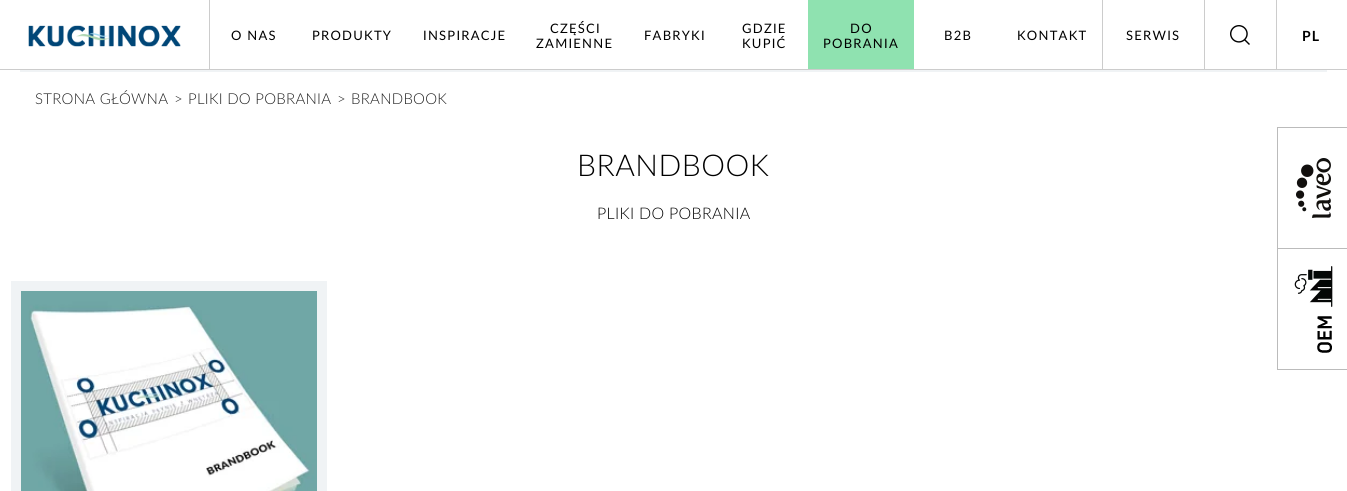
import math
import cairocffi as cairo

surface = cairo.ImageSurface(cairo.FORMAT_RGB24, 1347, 491)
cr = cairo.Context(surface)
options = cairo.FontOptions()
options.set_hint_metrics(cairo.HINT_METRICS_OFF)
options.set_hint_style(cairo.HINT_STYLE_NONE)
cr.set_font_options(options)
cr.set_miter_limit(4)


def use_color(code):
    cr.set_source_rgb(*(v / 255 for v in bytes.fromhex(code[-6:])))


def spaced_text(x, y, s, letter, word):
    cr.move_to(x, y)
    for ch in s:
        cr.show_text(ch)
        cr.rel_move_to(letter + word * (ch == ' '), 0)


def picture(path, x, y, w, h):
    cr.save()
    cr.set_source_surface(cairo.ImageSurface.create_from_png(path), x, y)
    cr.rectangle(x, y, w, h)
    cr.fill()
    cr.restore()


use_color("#ffffff")
cr.paint()
use_color("#cccccc")
cr.rectangle(0, 69, 1347, 1)
cr.fill()
cr.rectangle(209, 0, 1, 69)
cr.fill()
picture("img1.png", 28, 25, 153, 22)
cr.select_font_face("Lato")
cr.set_font_size(13)
use_color("#000000")
spaced_text(231, 40, "O NAS", 1.25, 0)
spaced_text(312, 40, "PRODUKTY", 1.25, 0)
spaced_text(423, 40, "INSPIRACJE", 1.25, 0)
spaced_text(550, 33, "CZĘŚCI", 1.25, 0)
spaced_text(536, 48, "ZAMIENNE", 1.25, 0)
spaced_text(644, 40, "FABRYKI", 1.25, 0)
spaced_text(742, 33, "GDZIE", 1.25, 0)
spaced_text(742, 48, "KUPIĆ", 1.25, 0)
use_color("#8fe2b0")
cr.rectangle(808, 0, 106, 69)
cr.fill()
use_color("#000000")
spaced_text(850, 33, "DO", 1.25, 0)
spaced_text(823, 48, "POBRANIA", 1.25, 0)
spaced_text(944, 40, "B2B", 1.25, 0)
spaced_text(1017, 40, "KONTAKT", 1.25, 0)
use_color("#cccccc")
cr.rectangle(1102, 0, 1, 69)
cr.fill()
use_color("#000000")
spaced_text(1126, 40, "SERWIS", 1.25, 0)
use_color("#cccccc")
cr.rectangle(1204, 0, 1, 69)
cr.fill()
picture("img2.png", 1230, 25, 20, 20)
cr.rectangle(1276, 0, 1, 69)
cr.fill()
cr.select_font_face("Lato", cairo.FONT_SLANT_NORMAL, cairo.FONT_WEIGHT_BOLD)
cr.set_font_size(14)
use_color("#000000")
spaced_text(1302, 41, "PL", 1, 0)
use_color("#f0f3f5")
cr.rectangle(20, 70, 1307, 2)
cr.fill()
cr.select_font_face("Lato Light")
cr.set_font_size(15)
use_color("#222222")
spaced_text(35, 104, "STRONA GŁÓWNA", 0.25, 0)
spaced_text(174, 104, ">", 0.25, 0)
spaced_text(188, 104, "PLIKI DO POBRANIA", 0.25, 0)
spaced_text(337, 104, ">", 0.25, 0)
spaced_text(351, 104, "BRANDBOOK", 0.25, 0)
cr.set_font_size(30)
use_color("#000000")
spaced_text(577, 176, "BRANDBOOK", 0.5, 0)
cr.set_font_size(16)
spaced_text(597, 219, "PLIKI DO POBRANIA", 0.3, 0)
use_color("#f0f3f5")
cr.rectangle(11, 281, 316, 210)
cr.fill()
picture("img3.png", 21, 291, 296, 200)
cr.rectangle(1277.5, 248.5, 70, 121)
use_color("#bbbbbb")
cr.set_line_width(1)
cr.stroke()
cr.rectangle(1277.5, 127.5, 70, 121)
cr.stroke()
picture("img4.png", 1296, 158, 35, 60)
picture("img5.png", 1294, 266, 39, 87)
surface.write_to_png("result.png")
